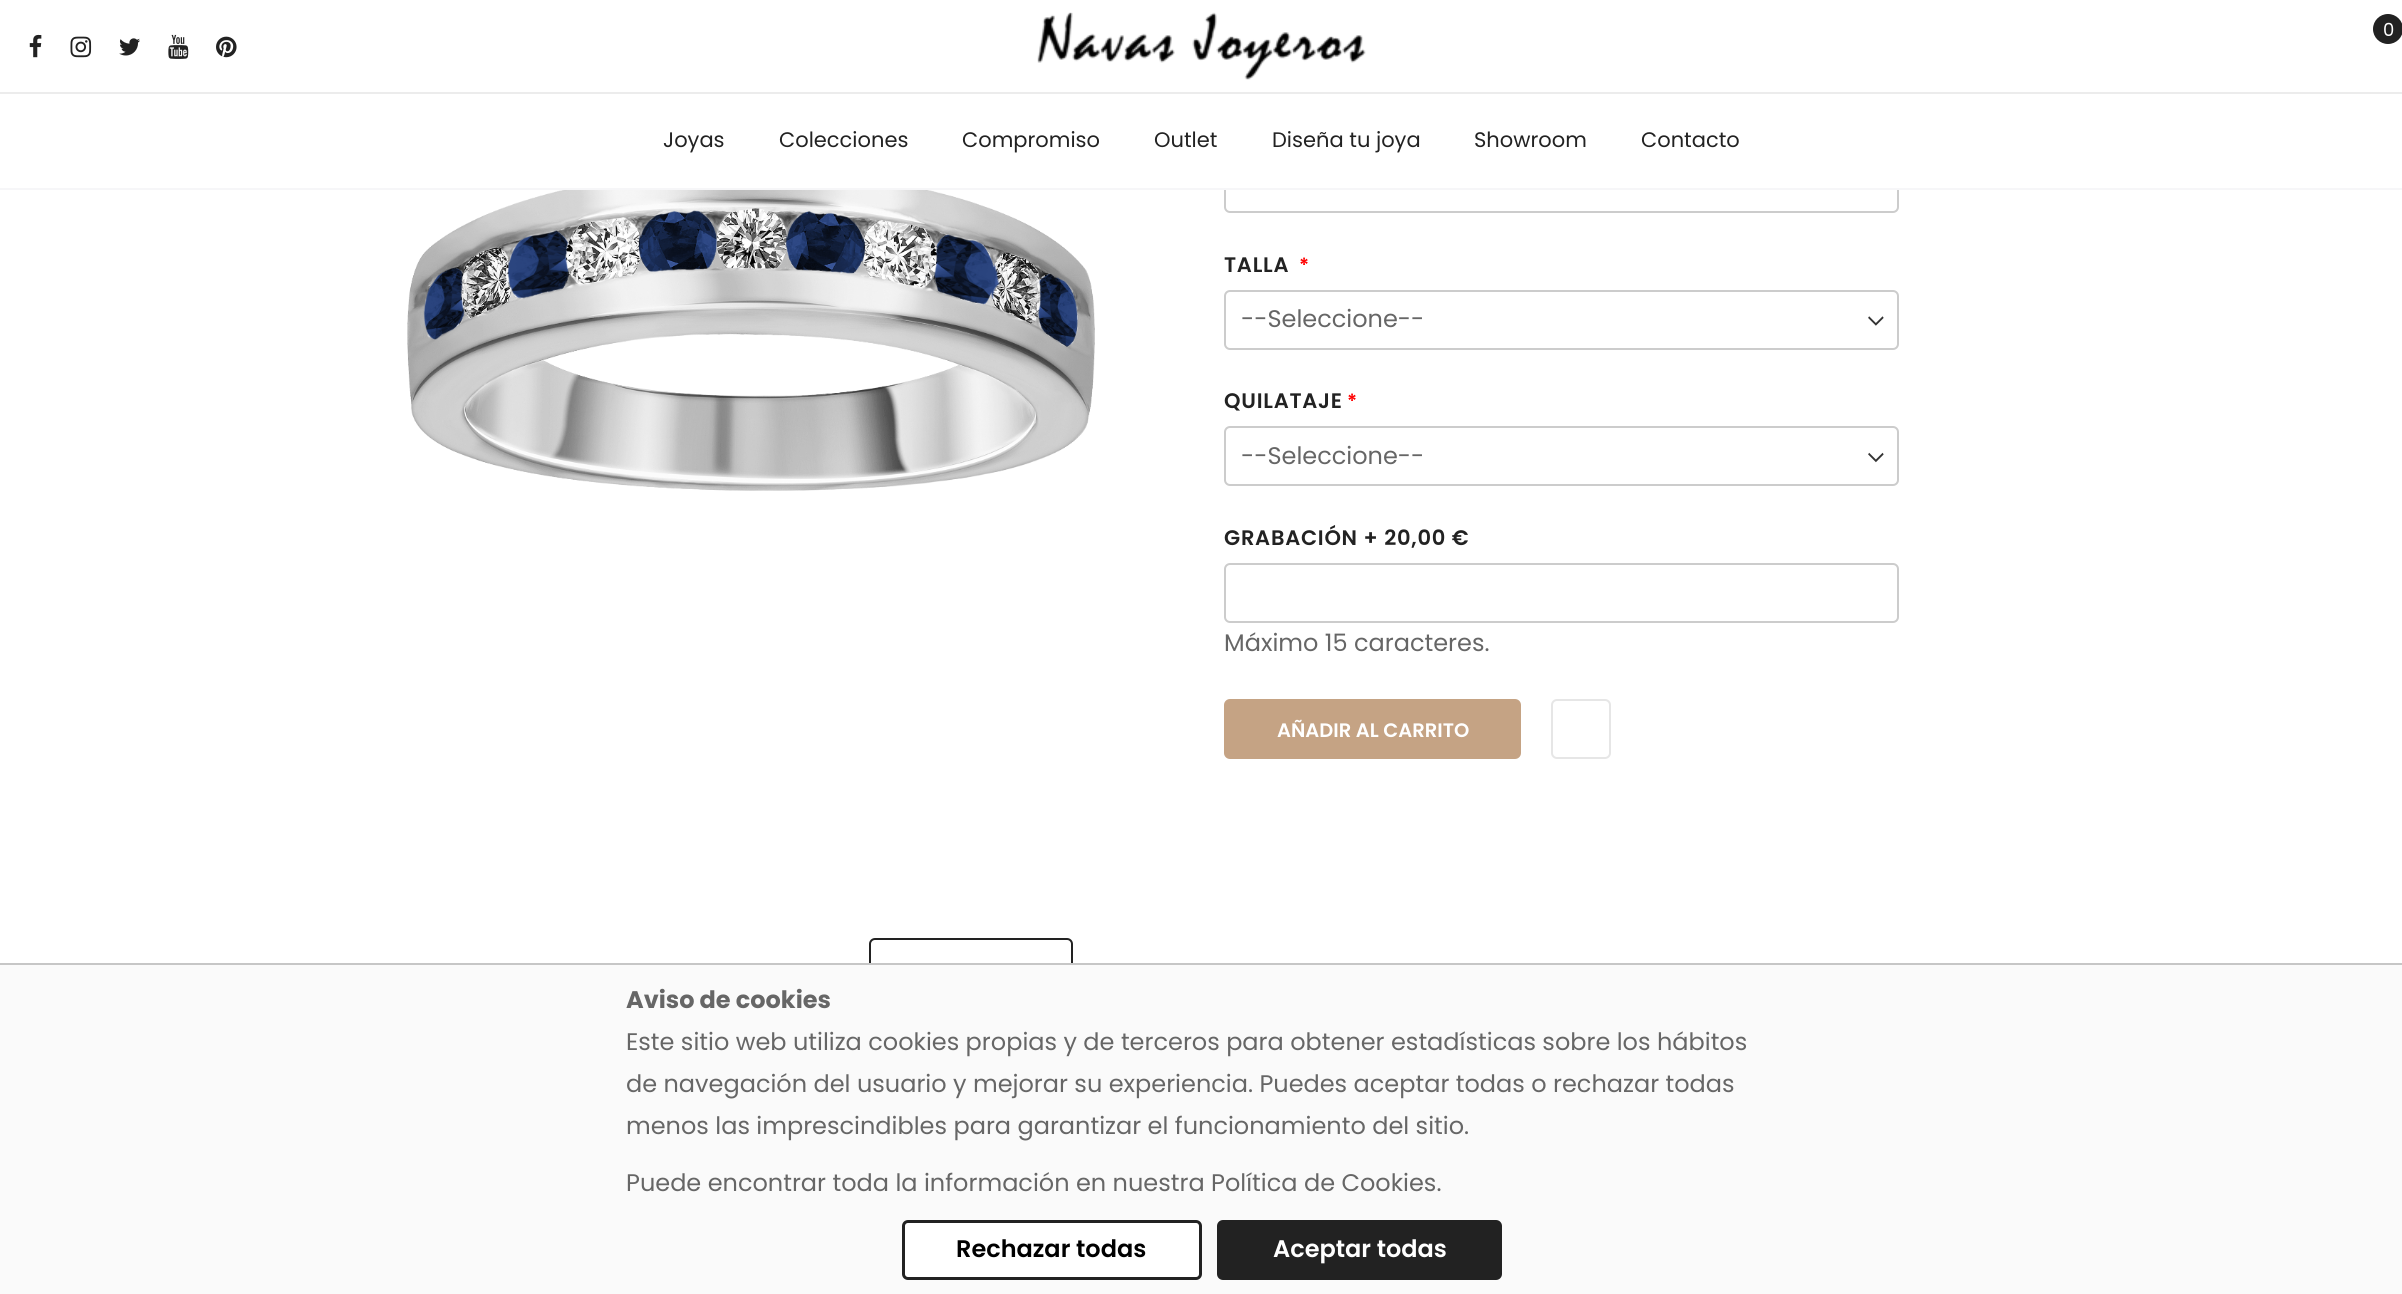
import math
import cairocffi as cairo

surface = cairo.ImageSurface(cairo.FORMAT_RGB24, 2402, 1294)
cr = cairo.Context(surface)
options = cairo.FontOptions()
options.set_hint_metrics(cairo.HINT_METRICS_OFF)
options.set_hint_style(cairo.HINT_STYLE_NONE)
cr.set_font_options(options)
cr.set_miter_limit(4)


def use_color(code):
    cr.set_source_rgb(*(v / 255 for v in bytes.fromhex(code[-6:])))


def spaced_text(x, y, s, letter, word):
    cr.move_to(x, y)
    for ch in s:
        cr.show_text(ch)
        cr.rel_move_to(letter + word * (ch == ' '), 0)


def round_rect(x, y, w, h, r):
    cr.new_sub_path()
    for i, (u, v) in enumerate([(x + w - r, y + h - r), (x + r, y + h - r), (x + r, y + r), (x + w - r, y + r)]):
        cr.arc(u, v, r, i * math.pi / 2, (i + 1) * math.pi / 2)
    cr.close_path()


def picture(path, x, y, w, h):
    cr.save()
    cr.set_source_surface(cairo.ImageSurface.create_from_png(path), x, y)
    cr.rectangle(x, y, w, h)
    cr.fill()
    cr.restore()


use_color("#ffffff")
cr.paint()
round_rect(1225, 154, 673, 58, 5)
use_color("#cccccc")
cr.stroke()
use_color("#ffffff")
cr.rectangle(1224, 153, 675, 35)
cr.fill()
use_color("#f6f6f8")
cr.rectangle(0, 188, 2402, 2)
cr.fill()
picture("img1.png", 1037, 12, 329, 68)
use_color("#222222")
cr.arc(2388, 29, 15, 0, 2 * math.pi)
cr.fill()
cr.select_font_face("Poppins")
cr.set_font_size(18)
use_color("#ffffff")
cr.move_to(2383, 36)
cr.show_text("0")
picture("img2.png", 29, 34, 13, 24)
picture("img3.png", 70, 36, 22, 22)
picture("img4.png", 119, 38, 21, 18)
picture("img5.png", 168, 34, 21, 25)
picture("img6.png", 216, 36, 21, 22)
use_color("#ececec")
cr.rectangle(0, 92, 2402, 2)
cr.fill()
cr.set_font_size(21)
use_color("#222222")
cr.move_to(663, 147)
cr.show_text("Joyas")
cr.move_to(779, 147)
cr.show_text("Colecciones")
cr.move_to(962, 147)
cr.show_text("Compromiso")
cr.move_to(1154, 147)
cr.show_text("Outlet")
cr.move_to(1272, 147)
cr.show_text("Diseña tu joya")
cr.move_to(1474, 147)
cr.show_text("Showroom")
cr.move_to(1641, 147)
cr.show_text("Contacto")
picture("img7.png", 407, 190, 688, 301)
cr.select_font_face("Poppins SemiBold")
spaced_text(1224, 272, "TALLA", 0.75, 0)
cr.set_font_size(19.5)
use_color("#ff0000")
spaced_text(1299, 272, "*", 0.75, 0)
picture("img8.png", 1868, 316, 16, 10)
round_rect(1225, 291, 673, 58, 5)
use_color("#cccccc")
cr.stroke()
cr.select_font_face("Poppins")
cr.set_font_size(24)
use_color("#666666")
cr.move_to(1241, 327)
cr.show_text("--Seleccione--")
cr.select_font_face("Poppins SemiBold")
cr.set_font_size(21)
use_color("#222222")
spaced_text(1224, 408, "QUILATAJE", 0.75, 0)
cr.set_font_size(19.5)
use_color("#ff0000")
spaced_text(1347, 408, "*", 0.75, 0)
picture("img9.png", 1868, 452, 16, 11)
round_rect(1225, 427, 673, 58, 5)
use_color("#cccccc")
cr.stroke()
cr.select_font_face("Poppins")
cr.set_font_size(24)
use_color("#666666")
cr.move_to(1241, 464)
cr.show_text("--Seleccione--")
cr.select_font_face("Poppins SemiBold")
cr.set_font_size(21)
use_color("#222222")
spaced_text(1224, 545, "GRABACIÓN + 20,00 €", 0.75, 0)
round_rect(1225, 564, 673, 58, 5)
use_color("#cccccc")
cr.stroke()
cr.select_font_face("Poppins")
cr.set_font_size(24)
use_color("#666666")
cr.move_to(1224, 651)
cr.show_text("Máximo 15 caracteres.")
use_color("#c5a384")
round_rect(1225, 700, 295, 58, 5)
cr.fill_preserve()
cr.stroke()
cr.select_font_face("Poppins SemiBold")
cr.set_font_size(19.5)
use_color("#ffffff")
cr.move_to(1277, 737)
cr.show_text("AÑADIR AL CARRITO")
round_rect(1552, 700, 58, 58, 5)
use_color("#e6e6e6")
cr.stroke()
round_rect(870, 939, 202, 58, 5)
use_color("#222222")
cr.stroke()
use_color("#fafafa")
cr.rectangle(0, 965, 2402, 329)
cr.fill()
use_color("#c6c6c6")
cr.rectangle(0, 963, 2402, 2)
cr.fill()
cr.select_font_face("Poppins", cairo.FONT_SLANT_NORMAL, cairo.FONT_WEIGHT_BOLD)
cr.set_font_size(24)
use_color("#666666")
cr.move_to(626, 1008)
cr.show_text("Aviso de cookies")
cr.select_font_face("Poppins")
cr.move_to(626, 1050)
cr.show_text("Este sitio web utiliza cookies propias y de terceros para obtener estadísticas sobre los hábitos")
cr.move_to(626, 1092)
cr.show_text("de navegación del usuario y mejorar su experiencia. Puedes aceptar todas o rechazar todas")
cr.move_to(626, 1134)
cr.show_text("menos las imprescindibles para garantizar el funcionamiento del sitio.")
cr.move_to(626, 1191)
cr.show_text("Puede encontrar toda la información en nuestra Política de Cookies.")
use_color("#ffffff")
round_rect(903.5, 1221.5, 297, 57, 4.5)
cr.fill_preserve()
use_color("#222222")
cr.set_line_width(3)
cr.stroke()
cr.select_font_face("Poppins SemiBold")
use_color("#000000")
cr.move_to(956, 1257)
cr.show_text("Rechazar todas")
use_color("#222222")
round_rect(1218.5, 1221.5, 282, 57, 4.5)
cr.fill_preserve()
cr.stroke()
use_color("#ffffff")
cr.move_to(1273, 1257)
cr.show_text("Aceptar todas")
surface.write_to_png("result.png")
